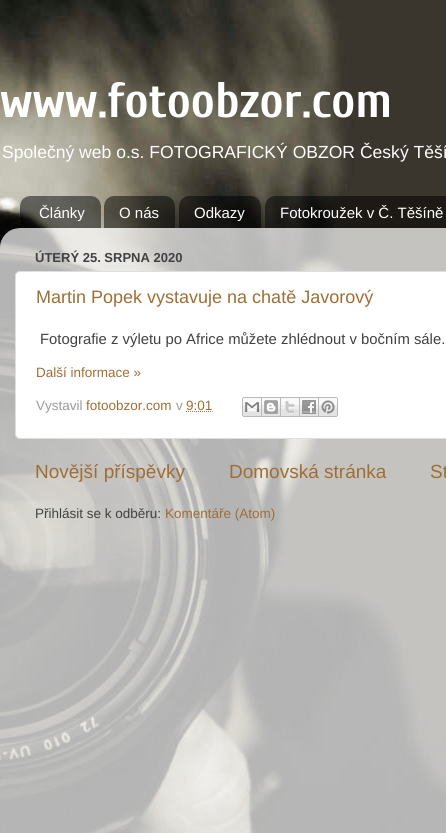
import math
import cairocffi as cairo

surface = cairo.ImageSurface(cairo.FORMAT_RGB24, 446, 833)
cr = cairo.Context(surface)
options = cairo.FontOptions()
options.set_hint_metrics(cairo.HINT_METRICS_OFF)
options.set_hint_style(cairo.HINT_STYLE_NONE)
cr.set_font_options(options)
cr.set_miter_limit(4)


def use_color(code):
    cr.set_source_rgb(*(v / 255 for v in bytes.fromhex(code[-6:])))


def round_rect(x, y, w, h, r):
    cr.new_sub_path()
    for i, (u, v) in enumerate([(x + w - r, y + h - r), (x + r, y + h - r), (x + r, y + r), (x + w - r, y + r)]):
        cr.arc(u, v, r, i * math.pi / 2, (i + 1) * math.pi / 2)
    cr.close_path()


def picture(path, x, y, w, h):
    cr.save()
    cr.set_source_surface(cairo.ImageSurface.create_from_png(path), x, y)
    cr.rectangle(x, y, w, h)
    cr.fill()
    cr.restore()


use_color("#ffffff")
cr.paint()
picture("img1.png", 0, 0, 446, 833)
cr.select_font_face("Cuprum", cairo.FONT_SLANT_NORMAL, cairo.FONT_WEIGHT_BOLD)
cr.set_font_size(50)
use_color("#ffffff")
cr.move_to(0, 117)
cr.show_text("www.fotoobzor.com")
cr.select_font_face("Liberation Sans")
cr.set_font_size(17.55)
cr.move_to(2, 158)
cr.show_text("Společný web o.s. FOTOGRAFICKÝ OBZOR Český Těší")
picture("img2.png", 20, 196, 81, 32)
cr.set_font_size(15)
cr.move_to(39, 218)
cr.show_text("Články")
picture("img3.png", 104, 196, 71, 32)
cr.move_to(119, 218)
cr.show_text("O nás")
picture("img4.png", 179, 196, 82, 32)
cr.move_to(194, 218)
cr.show_text("Odkazy")
picture("img5.png", 265, 196, 181, 32)
cr.move_to(280, 218)
cr.show_text("Fotokroužek v Č. Těšíně")
picture("img6.png", 0, 228, 446, 605)
cr.select_font_face("Liberation Sans", cairo.FONT_SLANT_NORMAL, cairo.FONT_WEIGHT_BOLD)
cr.set_font_size(13)
use_color("#414141")
cr.move_to(35, 262)
cr.show_text("ÚTERÝ 25. SRPNA 2020")
use_color("#ffffff")
round_rect(15.5, 271.5, 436, 167, 4.5)
cr.fill_preserve()
use_color("#dedede")
cr.set_line_width(1)
cr.stroke()
cr.select_font_face("Liberation Sans")
cr.set_font_size(18)
use_color("#9f6e35")
cr.move_to(36, 303)
cr.show_text("Martin Popek vystavuje na chatě Javorový")
cr.set_font_size(14.85)
use_color("#414141")
cr.move_to(40, 344)
cr.show_text("Fotografie z výletu po Africe můžete zhlédnout v bočním sále.")
cr.set_font_size(13.5)
use_color("#9f6e35")
cr.move_to(36, 377)
cr.show_text("Další informace »")
use_color("#9b9b9b")
cr.move_to(36, 410)
cr.show_text("Vystavil")
use_color("#9f6e35")
cr.move_to(86, 410)
cr.show_text("fotoobzor.com")
use_color("#9b9b9b")
cr.move_to(176, 410)
cr.show_text("v")
use_color("#9f6e35")
cr.move_to(186, 410)
cr.show_text("9:01")
cr.new_path()
cr.move_to(186, 411.5)
cr.line_to(212.5, 411.5)
cr.set_dash([1, 1])
cr.stroke()
picture("img7.png", 242, 397, 20, 20)
picture("img8.png", 262, 397, 19, 20)
picture("img9.png", 281, 397, 19, 20)
picture("img10.png", 300, 397, 19, 20)
picture("img11.png", 319, 397, 19, 20)
cr.set_font_size(19)
cr.move_to(35, 478)
cr.show_text("Novější příspěvky")
cr.move_to(229, 478)
cr.show_text("Domovská stránka")
cr.move_to(430, 478)
cr.show_text("St")
cr.set_font_size(13.5)
use_color("#414141")
cr.move_to(35, 518)
cr.show_text("Přihlásit se k odběru:")
use_color("#9f6e35")
cr.move_to(165, 518)
cr.show_text("Komentáře (Atom)")
surface.write_to_png("result.png")
